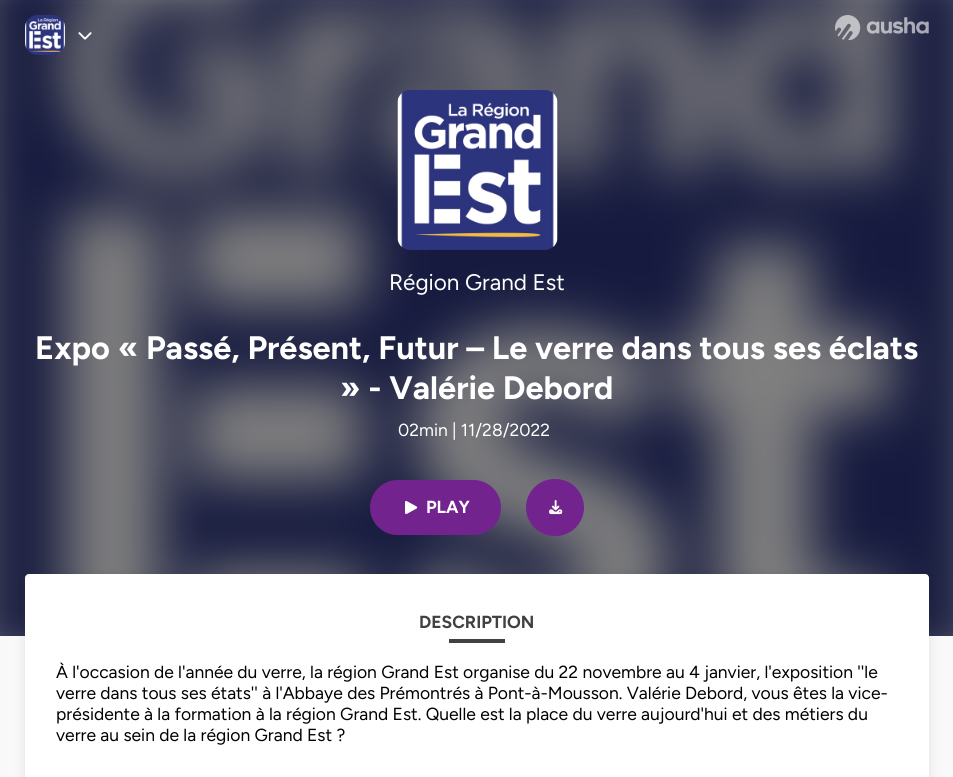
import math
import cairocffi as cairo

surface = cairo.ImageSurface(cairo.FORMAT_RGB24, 953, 777)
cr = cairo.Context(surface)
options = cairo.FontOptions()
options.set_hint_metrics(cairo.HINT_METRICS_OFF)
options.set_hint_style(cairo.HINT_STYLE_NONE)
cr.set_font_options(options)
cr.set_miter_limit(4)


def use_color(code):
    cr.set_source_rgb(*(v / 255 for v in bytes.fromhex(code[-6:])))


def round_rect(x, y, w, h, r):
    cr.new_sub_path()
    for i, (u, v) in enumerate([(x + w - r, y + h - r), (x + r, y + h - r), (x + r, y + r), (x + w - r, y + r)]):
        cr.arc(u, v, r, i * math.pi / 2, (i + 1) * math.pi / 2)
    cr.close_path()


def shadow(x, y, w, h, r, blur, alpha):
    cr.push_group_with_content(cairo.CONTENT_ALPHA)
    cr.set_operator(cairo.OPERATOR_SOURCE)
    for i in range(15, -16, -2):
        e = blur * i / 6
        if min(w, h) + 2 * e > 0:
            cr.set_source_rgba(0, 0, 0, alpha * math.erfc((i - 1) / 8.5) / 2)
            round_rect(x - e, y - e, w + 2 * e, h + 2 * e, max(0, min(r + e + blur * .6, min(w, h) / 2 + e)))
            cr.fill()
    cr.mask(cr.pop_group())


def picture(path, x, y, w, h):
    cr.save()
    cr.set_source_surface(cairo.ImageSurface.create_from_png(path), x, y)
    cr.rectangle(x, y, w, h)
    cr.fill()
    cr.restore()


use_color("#ffffff")
cr.paint()
picture("img1.png", 0, 0, 953, 636)
use_color("#000000")
shadow(-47, -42, 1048, 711, 0, 25, 0.5)
picture("img2.png", 25, 15, 40, 40)
picture("img3.png", 78, 32, 14, 8)
picture("img4.png", 835, 15, 94, 25)
picture("img5.png", 397, 90, 161, 160)
cr.select_font_face("Figtree")
cr.set_font_size(22.5)
use_color("#ffffff")
cr.move_to(389, 290)
cr.show_text("Région Grand Est")
cr.select_font_face("Figtree", cairo.FONT_SLANT_NORMAL, cairo.FONT_WEIGHT_BOLD)
cr.set_font_size(32.5)
cr.move_to(35, 359)
cr.show_text("Expo « Passé, Présent, Futur – Le verre dans tous ses éclats")
cr.move_to(340, 399)
cr.show_text("» - Valérie Debord")
cr.select_font_face("Figtree")
cr.set_font_size(17.5)
cr.move_to(398, 436)
cr.show_text("02min | 11/28/2022")
use_color("#72238e")
round_rect(370, 480, 131, 55, 27.5)
cr.fill()
picture("img6.png", 405, 501, 13, 13)
cr.select_font_face("Figtree", cairo.FONT_SLANT_NORMAL, cairo.FONT_WEIGHT_BOLD)
use_color("#ffffff")
cr.move_to(426, 513)
cr.show_text("PLAY")
use_color("#72238e")
round_rect(526, 479, 58, 57, 28.5)
cr.fill()
picture("img7.png", 549, 500, 14, 15)
use_color("#f9f9f9")
cr.rectangle(0, 636, 953, 141)
cr.fill()
use_color("#000000")
shadow(25, 576, 904, 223, 4, 6, 0.1)
use_color("#ffffff")
round_rect(25, 574, 904, 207, 4)
cr.fill()
use_color("#414141")
cr.move_to(419, 628)
cr.show_text("DESCRIPTION")
cr.rectangle(449, 639, 56, 4)
cr.fill()
cr.select_font_face("Figtree")
use_color("#000000")
cr.move_to(56, 678)
cr.show_text("À l'occasion de l'année du verre, la région Grand Est organise du 22 novembre au 4 janvier, l'exposition ''le")
cr.move_to(56, 699)
cr.show_text("verre dans tous ses états'' à l'Abbaye des Prémontrés à Pont-à-Mousson. Valérie Debord, vous êtes la vice-")
cr.move_to(56, 720)
cr.show_text("présidente à la formation à la région Grand Est. Quelle est la place du verre aujourd'hui et des métiers du")
cr.move_to(56, 741)
cr.show_text("verre au sein de la région Grand Est ?")
surface.write_to_png("result.png")
